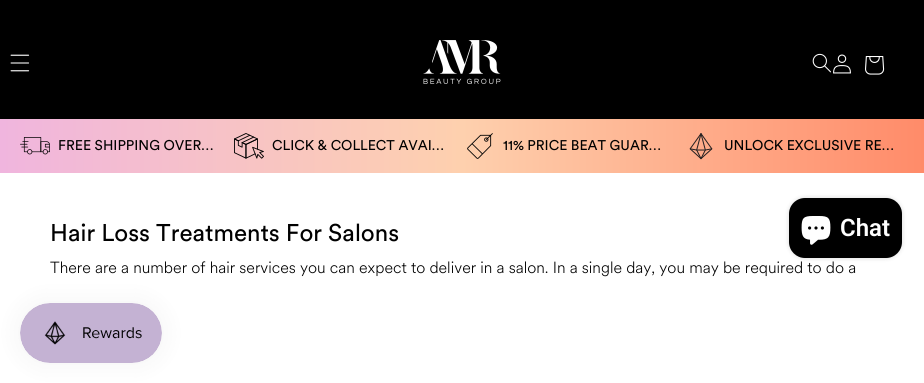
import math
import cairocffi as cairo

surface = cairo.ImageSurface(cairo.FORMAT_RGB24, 924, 383)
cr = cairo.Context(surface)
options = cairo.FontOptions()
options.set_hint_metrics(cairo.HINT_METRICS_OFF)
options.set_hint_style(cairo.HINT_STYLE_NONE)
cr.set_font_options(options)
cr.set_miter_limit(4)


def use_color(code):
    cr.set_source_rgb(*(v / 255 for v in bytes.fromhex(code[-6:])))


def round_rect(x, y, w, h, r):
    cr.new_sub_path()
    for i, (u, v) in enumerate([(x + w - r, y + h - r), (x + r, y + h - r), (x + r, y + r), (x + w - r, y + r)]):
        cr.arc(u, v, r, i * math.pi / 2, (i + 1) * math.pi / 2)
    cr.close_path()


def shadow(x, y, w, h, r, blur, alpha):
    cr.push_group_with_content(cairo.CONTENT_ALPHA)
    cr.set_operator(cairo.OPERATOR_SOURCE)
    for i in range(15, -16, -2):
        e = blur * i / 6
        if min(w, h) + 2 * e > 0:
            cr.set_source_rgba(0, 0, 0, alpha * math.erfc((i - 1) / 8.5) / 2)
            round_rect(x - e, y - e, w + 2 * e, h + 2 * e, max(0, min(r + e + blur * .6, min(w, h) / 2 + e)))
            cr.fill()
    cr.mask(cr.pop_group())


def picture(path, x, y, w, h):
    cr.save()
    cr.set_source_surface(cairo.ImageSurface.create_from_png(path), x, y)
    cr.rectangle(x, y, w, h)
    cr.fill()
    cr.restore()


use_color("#ffffff")
cr.paint()
use_color("#000000")
cr.rectangle(0, 0, 924, 119)
cr.fill()
picture("img1.png", 10, 54, 20, 18)
picture("img2.png", 423, 40, 78, 44)
picture("img3.png", 812, 53, 19, 20)
picture("img4.png", 833, 54, 18, 20)
picture("img5.png", 865, 56, 20, 19)
gradient = cairo.LinearGradient(0, 146, 924, 146)
gradient.add_color_stop_rgba(0, 0.941, 0.71, 0.871, 1)
gradient.add_color_stop_rgba(0.5, 0.996, 0.816, 0.682, 1)
gradient.add_color_stop_rgba(1, 1, 0.545, 0.412, 1)
cr.set_source(gradient)
cr.rectangle(0, 119, 924, 54)
cr.fill()
picture("img6.png", 20, 137, 30, 18)
cr.select_font_face("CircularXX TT")
cr.set_font_size(14)
use_color("#000000")
cr.move_to(58, 150)
cr.show_text("FREE SHIPPING OVER…")
picture("img7.png", 234, 133, 30, 26)
cr.move_to(272, 150)
cr.show_text("CLICK & COLLECT AVAI…")
picture("img8.png", 467, 133, 26, 26)
cr.move_to(503, 150)
cr.show_text("11% PRICE BEAT GUAR…")
picture("img9.png", 689, 133, 24, 27)
cr.move_to(724, 150)
cr.show_text("UNLOCK EXCLUSIVE RE…")
cr.set_font_size(24)
cr.move_to(50, 241)
cr.show_text("Hair Loss Treatments For Salons")
cr.select_font_face("CircularXX TT Light")
cr.set_font_size(16)
cr.move_to(50, 273)
cr.show_text("There are a number of hair services you can expect to deliver in a salon. In a single day, you may be required to do a")
use_color("#000000")
shadow(789, 198, 113, 60, 16, 2.5, 0.15)
use_color("#000000")
round_rect(789, 198, 113, 60, 16)
cr.fill()
picture("img10.png", 801, 216, 30, 29)
cr.select_font_face("Roboto SemiBold")
cr.set_font_size(24)
use_color("#ffffff")
cr.move_to(840, 236)
cr.show_text("Chat")
use_color("#000000")
shadow(20, 303, 142, 60, 30, 12.5, 0.05)
picture("img11.png", 20, 303, 142, 60)
surface.write_to_png("result.png")
